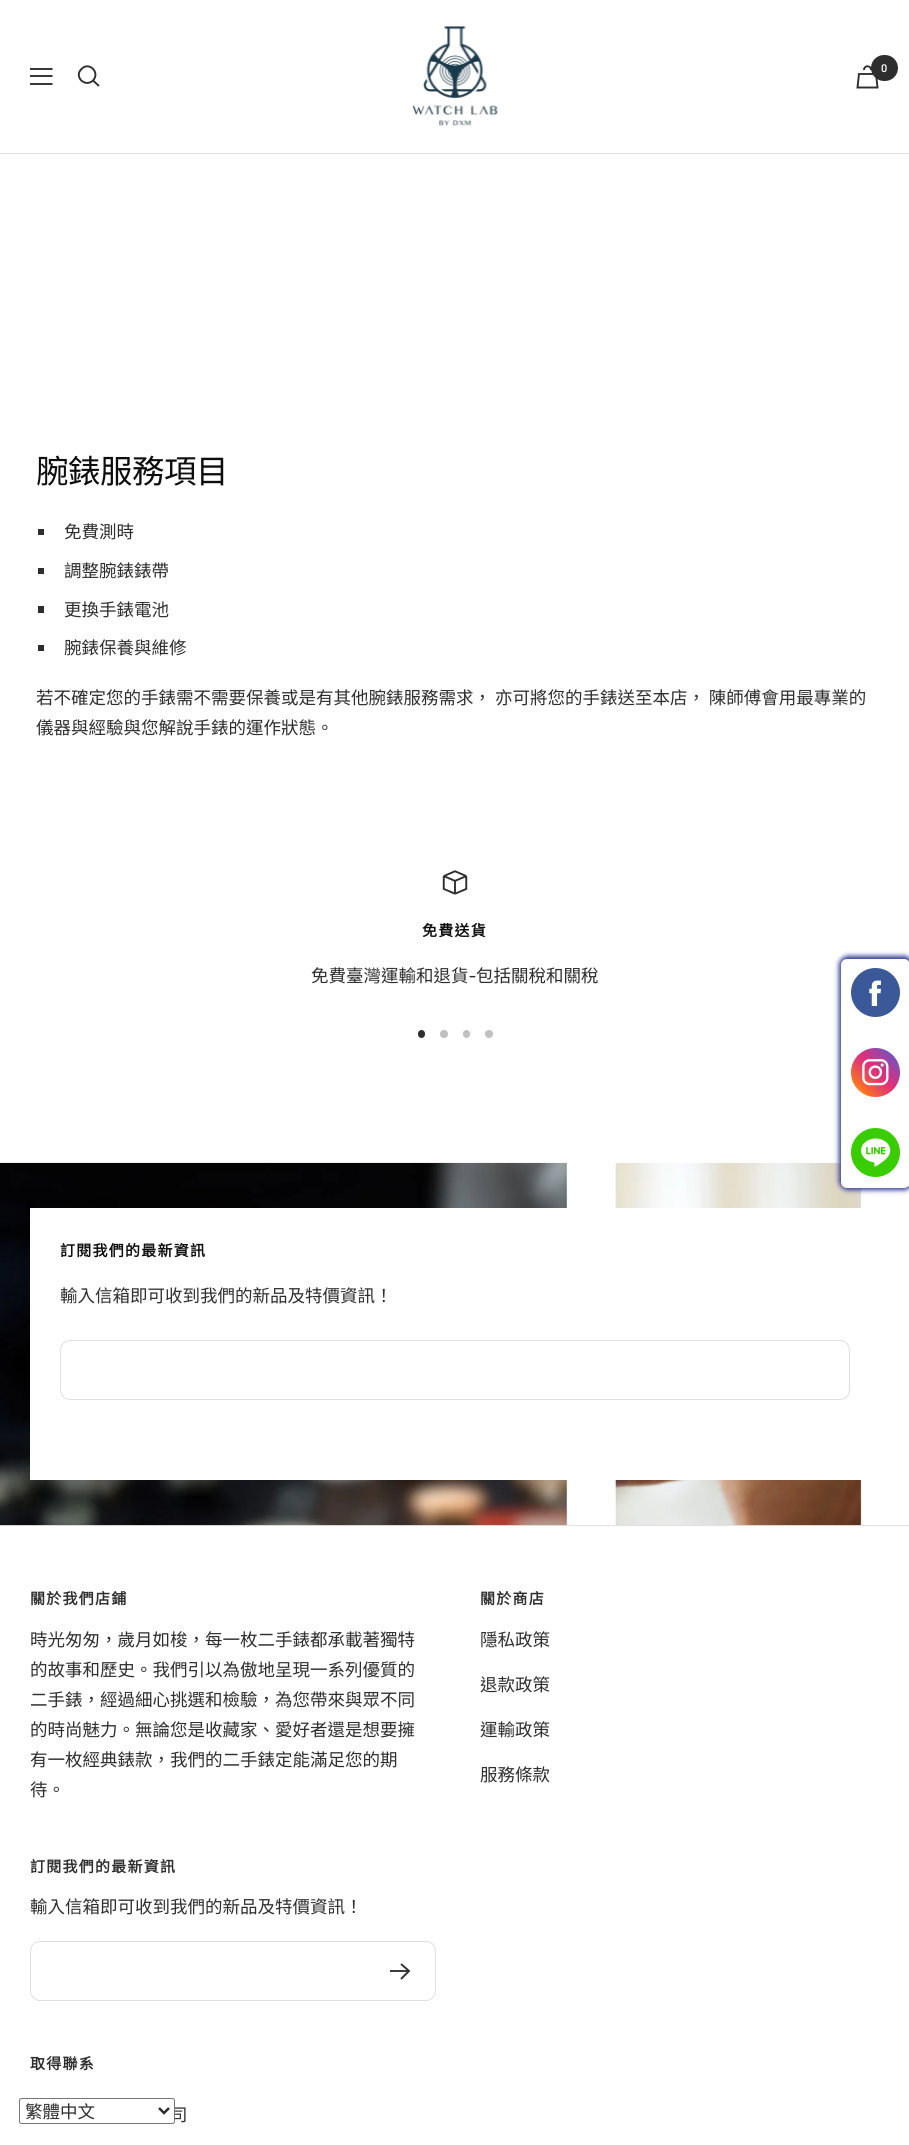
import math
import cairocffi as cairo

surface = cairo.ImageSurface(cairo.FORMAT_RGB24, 909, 2145)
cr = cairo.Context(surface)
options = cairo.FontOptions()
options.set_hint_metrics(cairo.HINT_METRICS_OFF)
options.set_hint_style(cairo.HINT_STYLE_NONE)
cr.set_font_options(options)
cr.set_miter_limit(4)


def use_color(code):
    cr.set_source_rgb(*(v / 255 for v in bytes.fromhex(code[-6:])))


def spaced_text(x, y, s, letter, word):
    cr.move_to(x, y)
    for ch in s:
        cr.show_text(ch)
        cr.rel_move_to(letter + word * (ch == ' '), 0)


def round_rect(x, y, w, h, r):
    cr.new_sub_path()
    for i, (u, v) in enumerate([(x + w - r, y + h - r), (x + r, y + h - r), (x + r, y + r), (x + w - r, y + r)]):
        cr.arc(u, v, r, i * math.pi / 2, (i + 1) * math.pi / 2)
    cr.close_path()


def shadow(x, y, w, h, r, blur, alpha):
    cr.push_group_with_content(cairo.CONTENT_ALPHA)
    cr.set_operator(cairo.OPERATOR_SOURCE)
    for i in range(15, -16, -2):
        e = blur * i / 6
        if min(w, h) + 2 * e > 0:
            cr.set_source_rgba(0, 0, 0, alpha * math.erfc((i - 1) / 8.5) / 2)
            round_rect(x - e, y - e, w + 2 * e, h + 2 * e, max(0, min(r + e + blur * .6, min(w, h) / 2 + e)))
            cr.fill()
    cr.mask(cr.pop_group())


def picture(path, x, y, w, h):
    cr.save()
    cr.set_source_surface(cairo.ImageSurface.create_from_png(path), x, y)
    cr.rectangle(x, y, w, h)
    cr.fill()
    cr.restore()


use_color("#ffffff")
cr.paint()
use_color("#e0e0e0")
cr.rectangle(0, 153, 909, 1)
cr.fill()
cr.new_path()
cr.move_to(30, 69)
cr.line_to(52.5, 69)
cr.move_to(30, 84)
cr.line_to(52.5, 84)
cr.close_path()
cr.move_to(30, 76)
cr.line_to(52.5, 76)
cr.close_path()
use_color("#2e2e2e")
cr.set_line_width(1.9)
cr.stroke()
cr.new_path()
cr.move_to(93, 80.5)
cr.curve_to(100.5, 72.5, 89, 61, 81.5, 69)
cr.curve_to(73.5, 76.5, 85, 88, 93, 80.5)
cr.close_path()
cr.move_to(93, 80.5)
cr.line_to(99, 86)
cr.stroke()
picture("img1.png", 412, 26, 87, 100)
cr.new_path()
cr.move_to(859, 74)
cr.line_to(876, 74)
cr.line_to(877.5, 87.5)
cr.line_to(857.5, 87.5)
cr.close_path()
cr.move_to(871, 70)
cr.curve_to(871, 65, 864, 65, 864, 70)
cr.stroke()
round_rect(871, 55, 27, 26, 13)
cr.fill()
cr.select_font_face("Barlow SemiBold")
cr.set_font_size(11)
use_color("#ffffff")
cr.move_to(881, 72)
cr.show_text("0")
cr.select_font_face("Noto Sans CJK TC")
cr.set_font_size(32.5)
use_color("#0d0d0d")
spaced_text(36, 483, "腕錶服務項目", -0.5, 0)
use_color("#2e2e2e")
cr.rectangle(38, 529, 6, 6)
cr.fill()
cr.set_font_size(17.5)
cr.move_to(64, 538)
cr.show_text("免費測時")
cr.rectangle(38, 568, 6, 6)
cr.fill()
cr.move_to(64, 577)
cr.show_text("調整腕錶錶帶")
cr.rectangle(38, 606, 6, 7)
cr.fill()
cr.move_to(64, 616)
cr.show_text("更換手錶電池")
cr.rectangle(38, 645, 6, 6)
cr.fill()
cr.move_to(64, 654)
cr.show_text("腕錶保養與維修")
cr.move_to(36, 704)
cr.show_text("若不確定您的手錶需不需要保養或是有其他腕錶服務需求， 亦可將您的手錶送至本店， 陳師傅會用最專業的")
cr.move_to(36, 734)
cr.show_text("儀器與經驗與您解說手錶的運作狀態。")
picture("img2.png", 442, 870, 26, 25)
cr.select_font_face("Noto Sans CJK TC", cairo.FONT_SLANT_NORMAL, cairo.FONT_WEIGHT_BOLD)
cr.set_font_size(15)
use_color("#0d0d0d")
spaced_text(422, 936, "免費送貨", 1.25, 0)
cr.select_font_face("Noto Sans CJK TC")
cr.set_font_size(17.5)
use_color("#2e2e2e")
cr.move_to(311, 982)
cr.show_text("免費臺灣運輸和退貨")
cr.select_font_face("Barlow Medium")
cr.move_to(469, 982)
cr.show_text("-")
cr.select_font_face("Noto Sans CJK TC")
cr.move_to(476, 982)
cr.show_text("包括關稅和關稅")
round_rect(418, 1030, 7, 8, 3.5)
cr.fill()
use_color("#c0c0c0")
cr.arc(444, 1034, 4, 0, 2 * math.pi)
cr.fill()
round_rect(463, 1030, 7, 8, 3.5)
cr.fill()
cr.arc(489, 1034, 4, 0, 2 * math.pi)
cr.fill()
use_color("#e0e0e0")
cr.rectangle(0, 1525, 909, 1)
cr.fill()
picture("img6.png", 0, 1162, 909, 364)
use_color("#283593")
shadow(839, 956, 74, 234, 9, 2.5, 1)
use_color("#ffffff")
round_rect(841, 959, 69, 229, 6)
cr.fill()
picture("img3.png", 851, 968, 49, 49)
picture("img4.png", 851, 1048, 49, 49)
picture("img5.png", 851, 1128, 49, 49)
cr.rectangle(30, 1208, 834, 272)
cr.fill()
cr.select_font_face("Noto Sans CJK TC", cairo.FONT_SLANT_NORMAL, cairo.FONT_WEIGHT_BOLD)
cr.set_font_size(15)
use_color("#0d0d0d")
spaced_text(60, 1256, "訂閱我們的最新資訊", 1.25, 0)
cr.select_font_face("Noto Sans CJK TC")
cr.set_font_size(17.5)
use_color("#2e2e2e")
cr.move_to(60, 1302)
cr.show_text("輸入信箱即可收到我們的新品及特價資訊！")
round_rect(60.5, 1340.5, 789, 59, 9.5)
use_color("#e0e0e0")
cr.set_line_width(1)
cr.stroke()
cr.select_font_face("Noto Sans CJK TC", cairo.FONT_SLANT_NORMAL, cairo.FONT_WEIGHT_BOLD)
cr.set_font_size(15)
use_color("#2e2e2e")
spaced_text(30, 1604, "關於我們店鋪", 1.25, 0)
cr.select_font_face("Noto Sans CJK TC")
cr.set_font_size(17.5)
cr.move_to(30, 1646)
cr.show_text("時光匆匆，歲月如梭，每一枚二手錶都承載著獨特")
cr.move_to(30, 1676)
cr.show_text("的故事和歷史。我們引以為傲地呈現一系列優質的")
cr.move_to(30, 1706)
cr.show_text("二手錶，經過細心挑選和檢驗，為您帶來與眾不同")
cr.move_to(30, 1736)
cr.show_text("的時尚魅力。無論您是收藏家、愛好者還是想要擁")
cr.move_to(30, 1766)
cr.show_text("有一枚經典錶款，我們的二手錶定能滿足您的期")
cr.move_to(30, 1796)
cr.show_text("待。")
cr.select_font_face("Noto Sans CJK TC", cairo.FONT_SLANT_NORMAL, cairo.FONT_WEIGHT_BOLD)
cr.set_font_size(15)
spaced_text(480, 1604, "關於商店", 1.25, 0)
cr.select_font_face("Noto Sans CJK TC")
cr.set_font_size(17.5)
cr.move_to(480, 1646)
cr.show_text("隱私政策")
cr.move_to(480, 1691)
cr.show_text("退款政策")
cr.move_to(480, 1736)
cr.show_text("運輸政策")
cr.move_to(480, 1781)
cr.show_text("服務條款")
cr.select_font_face("Noto Sans CJK TC", cairo.FONT_SLANT_NORMAL, cairo.FONT_WEIGHT_BOLD)
cr.set_font_size(15)
spaced_text(30, 1872, "訂閱我們的最新資訊", 1.25, 0)
cr.select_font_face("Noto Sans CJK TC")
cr.set_font_size(17.5)
cr.move_to(30, 1913)
cr.show_text("輸入信箱即可收到我們的新品及特價資訊！")
round_rect(30.5, 1941.5, 405, 59, 9.5)
use_color("#e0e0e0")
cr.stroke()
cr.new_path()
cr.move_to(390, 1971)
cr.line_to(409, 1971)
cr.move_to(401, 1964)
cr.line_to(409, 1971)
cr.line_to(401, 1979)
use_color("#2e2e2e")
cr.set_line_width(1.9)
cr.stroke()
cr.select_font_face("Noto Sans CJK TC", cairo.FONT_SLANT_NORMAL, cairo.FONT_WEIGHT_BOLD)
cr.set_font_size(15)
spaced_text(30, 2069, "取得聯系", 1.25, 0)
cr.select_font_face("Noto Sans CJK TC")
cr.set_font_size(17.5)
cr.move_to(170, 2121)
cr.show_text("司")
use_color("#ffffff")
round_rect(19.5, 2098.5, 155, 25, 2)
cr.fill_preserve()
use_color("#767676")
cr.set_line_width(1)
cr.stroke()
cr.new_path()
cr.move_to(159, 2108)
cr.line_to(164, 2113)
cr.line_to(169, 2108)
use_color("#2e2e2e")
cr.set_line_width(2.5)
cr.stroke()
cr.move_to(25, 2118)
cr.show_text("繁體中文")
surface.write_to_png("result.png")
